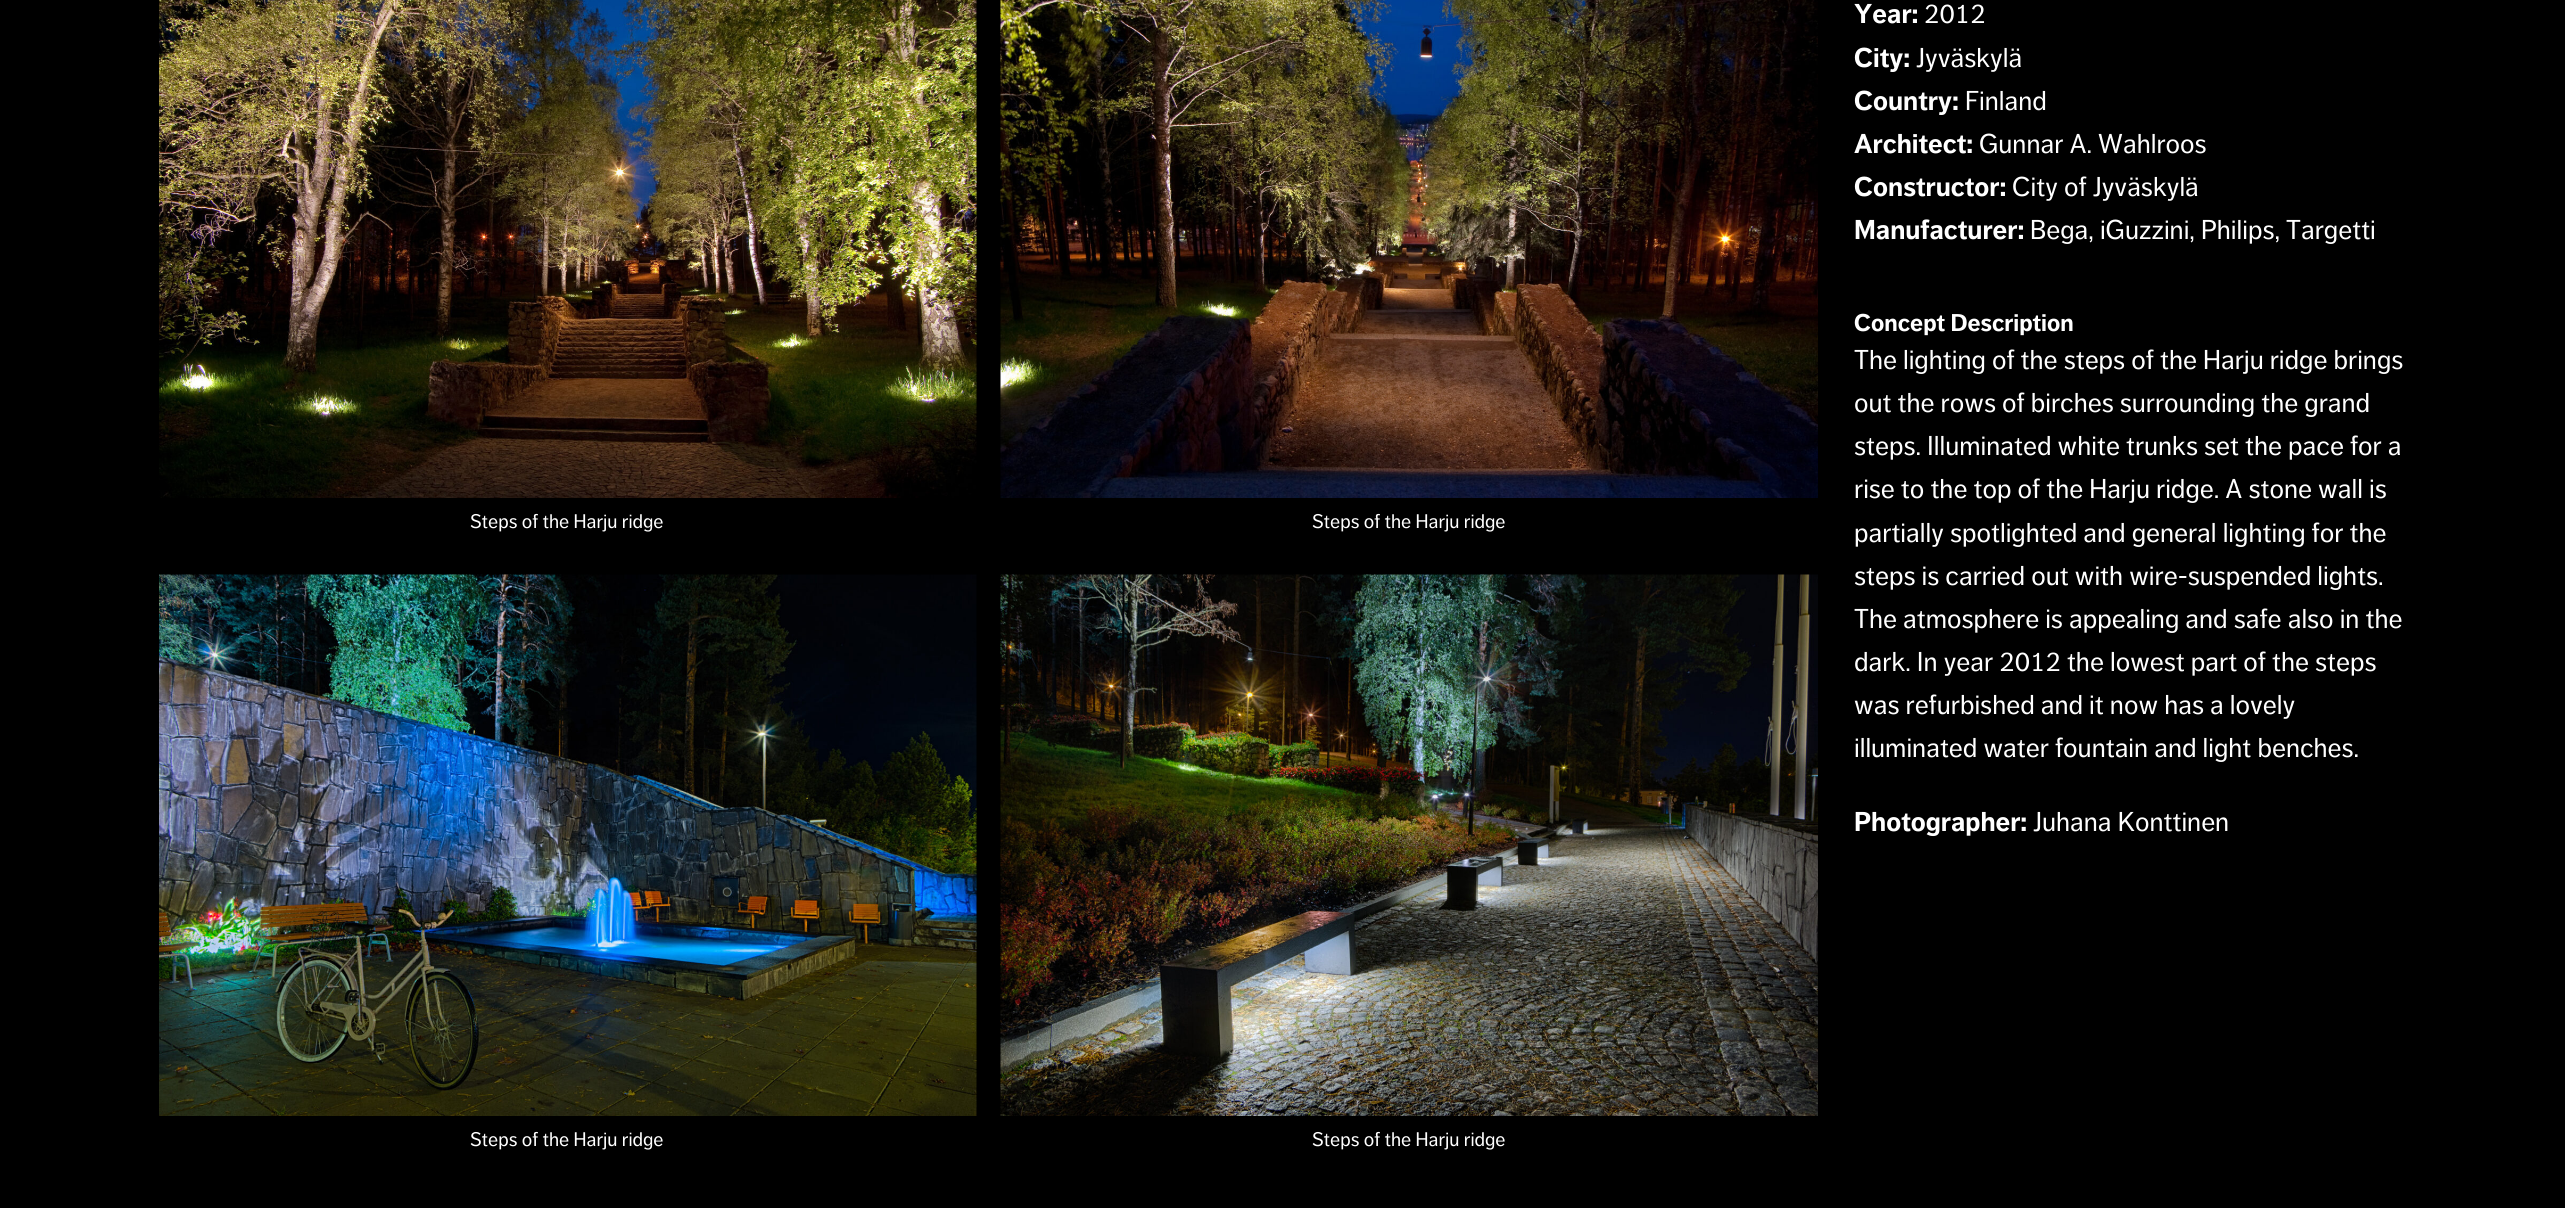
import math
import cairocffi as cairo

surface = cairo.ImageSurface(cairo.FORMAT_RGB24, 2565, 1208)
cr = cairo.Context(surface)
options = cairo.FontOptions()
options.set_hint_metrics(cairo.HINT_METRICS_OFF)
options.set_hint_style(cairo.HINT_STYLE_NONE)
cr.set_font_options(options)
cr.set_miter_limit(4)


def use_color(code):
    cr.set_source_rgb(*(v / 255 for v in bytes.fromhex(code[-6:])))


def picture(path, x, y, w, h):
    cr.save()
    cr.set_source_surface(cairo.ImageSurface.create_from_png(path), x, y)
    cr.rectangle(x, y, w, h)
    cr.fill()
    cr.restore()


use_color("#000000")
cr.paint()
picture("img1.png", 159, 0, 818, 498)
cr.select_font_face("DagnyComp")
cr.set_font_size(19.5)
use_color("#ffffff")
cr.move_to(470, 528)
cr.show_text("Steps of the Harju ridge")
picture("img2.png", 1000, 0, 818, 498)
cr.move_to(1312, 528)
cr.show_text("Steps of the Harju ridge")
picture("img3.png", 159, 574, 818, 542)
cr.move_to(470, 1146)
cr.show_text("Steps of the Harju ridge")
picture("img4.png", 1000, 574, 818, 542)
cr.move_to(1312, 1146)
cr.show_text("Steps of the Harju ridge")
cr.select_font_face("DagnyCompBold", cairo.FONT_SLANT_NORMAL, cairo.FONT_WEIGHT_BOLD)
cr.set_font_size(27)
cr.move_to(1854, 23)
cr.show_text("Year:")
cr.select_font_face("DagnyComp")
cr.move_to(1924, 23)
cr.show_text("2012")
cr.select_font_face("DagnyCompBold", cairo.FONT_SLANT_NORMAL, cairo.FONT_WEIGHT_BOLD)
cr.move_to(1854, 67)
cr.show_text("City:")
cr.select_font_face("DagnyComp")
cr.move_to(1916, 67)
cr.show_text("Jyväskylä")
cr.select_font_face("DagnyCompBold", cairo.FONT_SLANT_NORMAL, cairo.FONT_WEIGHT_BOLD)
cr.move_to(1854, 110)
cr.show_text("Country:")
cr.select_font_face("DagnyComp")
cr.move_to(1965, 110)
cr.show_text("Finland")
cr.select_font_face("DagnyCompBold", cairo.FONT_SLANT_NORMAL, cairo.FONT_WEIGHT_BOLD)
cr.move_to(1854, 153)
cr.show_text("Architect:")
cr.select_font_face("DagnyComp")
cr.move_to(1979, 153)
cr.show_text("Gunnar A. Wahlroos")
cr.select_font_face("DagnyCompBold", cairo.FONT_SLANT_NORMAL, cairo.FONT_WEIGHT_BOLD)
cr.move_to(1854, 196)
cr.show_text("Constructor:")
cr.select_font_face("DagnyComp")
cr.move_to(2012, 196)
cr.show_text("City of Jyväskylä")
cr.select_font_face("DagnyCompBold", cairo.FONT_SLANT_NORMAL, cairo.FONT_WEIGHT_BOLD)
cr.move_to(1854, 239)
cr.show_text("Manufacturer:")
cr.select_font_face("DagnyComp")
cr.move_to(2030, 239)
cr.show_text("Bega, iGuzzini, Philips, Targetti")
cr.select_font_face("DagnyCompBold", cairo.FONT_SLANT_NORMAL, cairo.FONT_WEIGHT_BOLD)
cr.set_font_size(24)
cr.move_to(1854, 331)
cr.show_text("Concept Description")
cr.select_font_face("DagnyComp")
cr.set_font_size(27)
cr.move_to(1854, 369)
cr.show_text("The lighting of the steps of the Harju ridge brings")
cr.move_to(1854, 412)
cr.show_text("out the rows of birches surrounding the grand")
cr.move_to(1854, 455)
cr.show_text("steps. Illuminated white trunks set the pace for a")
cr.move_to(1854, 498)
cr.show_text("rise to the top of the Harju ridge. A stone wall is")
cr.move_to(1854, 542)
cr.show_text("partially spotlighted and general lighting for the")
cr.move_to(1854, 585)
cr.show_text("steps is carried out with wire-suspended lights.")
cr.move_to(1854, 628)
cr.show_text("The atmosphere is appealing and safe also in the")
cr.move_to(1854, 671)
cr.show_text("dark. In year 2012 the lowest part of the steps")
cr.move_to(1854, 714)
cr.show_text("was refurbished and it now has a lovely")
cr.move_to(1854, 757)
cr.show_text("illuminated water fountain and light benches.")
cr.select_font_face("DagnyCompBold", cairo.FONT_SLANT_NORMAL, cairo.FONT_WEIGHT_BOLD)
cr.move_to(1854, 831)
cr.show_text("Photographer:")
cr.select_font_face("DagnyComp")
cr.move_to(2033, 831)
cr.show_text("Juhana Konttinen")
surface.write_to_png("result.png")
